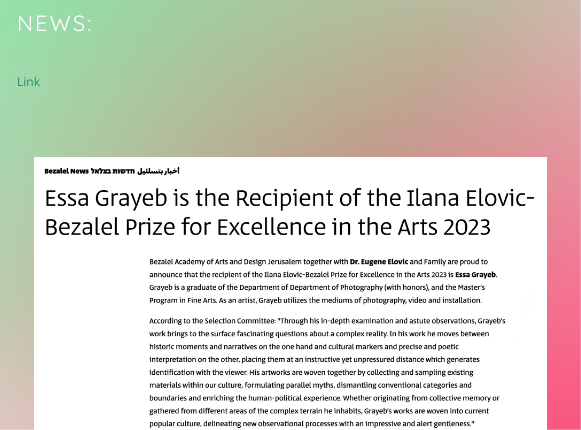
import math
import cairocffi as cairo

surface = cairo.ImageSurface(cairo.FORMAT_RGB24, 581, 430)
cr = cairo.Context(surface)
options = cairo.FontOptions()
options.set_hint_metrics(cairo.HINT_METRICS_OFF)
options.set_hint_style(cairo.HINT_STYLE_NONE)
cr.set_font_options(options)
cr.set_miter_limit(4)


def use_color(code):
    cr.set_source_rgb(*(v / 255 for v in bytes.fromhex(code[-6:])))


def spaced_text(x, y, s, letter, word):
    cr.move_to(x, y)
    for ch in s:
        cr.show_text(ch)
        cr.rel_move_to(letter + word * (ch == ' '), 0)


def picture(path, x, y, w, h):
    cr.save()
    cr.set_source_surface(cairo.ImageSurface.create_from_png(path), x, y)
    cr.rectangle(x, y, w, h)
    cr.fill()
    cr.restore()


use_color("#ffffff")
cr.paint()
picture("img1.png", 0, 0, 581, 430)
cr.select_font_face("Quicksand")
cr.set_font_size(22)
use_color("#ffffff")
spaced_text(17, 31, "NEWS:", 2, 0)
cr.select_font_face("Open Sans")
cr.set_font_size(12)
use_color("#2a8769")
cr.move_to(17, 86)
cr.show_text("Link")
picture("img2.png", 34, 157, 513, 273)
surface.write_to_png("result.png")
